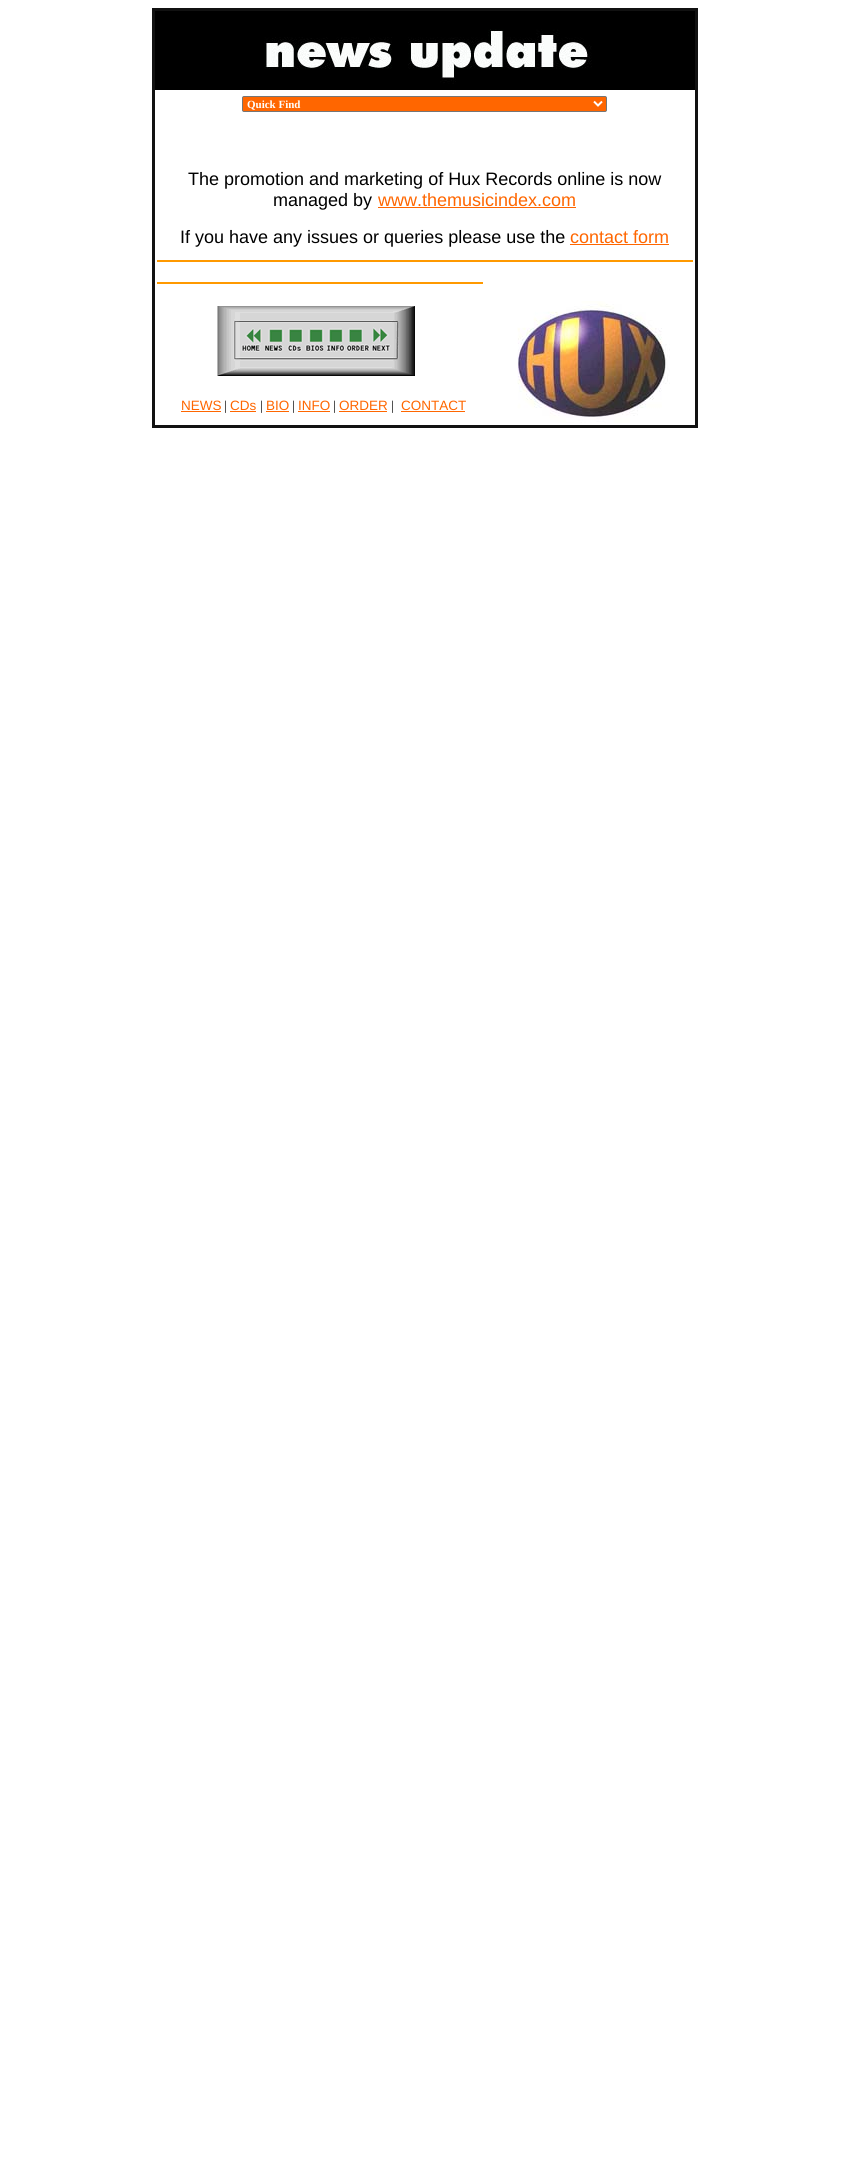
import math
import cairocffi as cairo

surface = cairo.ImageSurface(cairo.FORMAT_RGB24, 849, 2167)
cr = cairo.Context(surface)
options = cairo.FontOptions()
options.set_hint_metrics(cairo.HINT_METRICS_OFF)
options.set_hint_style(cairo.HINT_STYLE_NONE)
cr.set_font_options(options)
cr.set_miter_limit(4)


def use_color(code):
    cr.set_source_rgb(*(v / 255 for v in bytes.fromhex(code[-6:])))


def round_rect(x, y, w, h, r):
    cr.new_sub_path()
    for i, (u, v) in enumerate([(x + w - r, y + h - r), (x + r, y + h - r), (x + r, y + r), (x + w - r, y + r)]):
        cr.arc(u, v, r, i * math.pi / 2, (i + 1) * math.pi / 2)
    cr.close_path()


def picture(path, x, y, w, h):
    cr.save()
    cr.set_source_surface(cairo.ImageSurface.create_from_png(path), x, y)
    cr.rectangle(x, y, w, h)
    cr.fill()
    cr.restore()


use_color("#ffffff")
cr.paint()
use_color("#111111")
cr.rectangle(152, 8, 546, 3)
cr.fill()
cr.rectangle(695, 8, 3, 420)
cr.fill()
cr.rectangle(152, 425, 546, 3)
cr.fill()
cr.rectangle(152, 8, 3, 420)
cr.fill()
use_color("#000000")
cr.rectangle(155, 11, 540, 79)
cr.fill()
picture("img1.png", 264, 29, 328, 55)
use_color("#ff6600")
round_rect(242.5, 96.5, 364, 15, 1.5)
cr.fill_preserve()
use_color("#767676")
cr.set_line_width(1)
cr.stroke()
cr.new_path()
cr.move_to(594, 101.5)
cr.line_to(598, 105.5)
cr.line_to(602, 101.5)
use_color("#ffffff")
cr.set_line_width(2)
cr.stroke()
cr.select_font_face("Liberation Serif", cairo.FONT_SLANT_NORMAL, cairo.FONT_WEIGHT_BOLD)
cr.set_font_size(11)
cr.move_to(247, 108)
cr.show_text("Quick Find")
cr.select_font_face("Liberation Sans")
cr.set_font_size(18)
use_color("#000000")
cr.move_to(188, 185)
cr.show_text("The promotion and marketing of Hux Records online is now")
cr.move_to(273, 206)
cr.show_text("managed by")
use_color("#ff6600")
cr.move_to(378, 206)
cr.show_text("www.themusicindex.com")
cr.rectangle(378, 207, 198, 1)
cr.fill()
use_color("#000000")
cr.move_to(180, 243)
cr.show_text("If you have any issues or queries please use the")
use_color("#ff6600")
cr.move_to(570, 243)
cr.show_text("contact form")
cr.rectangle(570, 244, 99, 1)
cr.fill()
use_color("#ff9900")
cr.rectangle(157, 260, 536, 2)
cr.fill()
cr.rectangle(157, 282, 326, 2)
cr.fill()
picture("img2.png", 217, 306, 198, 70)
cr.set_font_size(13.5)
use_color("#ff6600")
cr.move_to(181, 410)
cr.show_text("NEWS")
cr.rectangle(181, 411, 40, 1)
cr.fill()
cr.select_font_face("Liberation Serif")
use_color("#000000")
cr.move_to(224, 410)
cr.show_text("|")
cr.select_font_face("Liberation Sans")
use_color("#ff6600")
cr.move_to(230, 410)
cr.show_text("CDs")
cr.rectangle(230, 411, 26, 1)
cr.fill()
cr.select_font_face("Liberation Serif")
use_color("#000000")
cr.move_to(260, 410)
cr.show_text("|")
cr.select_font_face("Liberation Sans")
use_color("#ff6600")
cr.move_to(266, 410)
cr.show_text("BIO")
cr.rectangle(266, 411, 23, 1)
cr.fill()
cr.select_font_face("Liberation Serif")
use_color("#000000")
cr.move_to(292, 410)
cr.show_text("|")
cr.select_font_face("Liberation Sans")
use_color("#ff6600")
cr.move_to(298, 410)
cr.show_text("INFO")
cr.rectangle(298, 411, 32, 1)
cr.fill()
cr.select_font_face("Liberation Serif")
use_color("#000000")
cr.move_to(333, 410)
cr.show_text("|")
cr.select_font_face("Liberation Sans")
use_color("#ff6600")
cr.move_to(339, 410)
cr.show_text("ORDER")
cr.rectangle(339, 411, 48, 1)
cr.fill()
cr.select_font_face("Liberation Serif")
use_color("#000000")
cr.move_to(391, 410)
cr.show_text("|")
cr.select_font_face("Liberation Sans")
use_color("#ff6600")
cr.move_to(401, 410)
cr.show_text("CONTACT")
cr.rectangle(401, 411, 64, 1)
cr.fill()
picture("img3.png", 517, 301, 153, 122)
surface.write_to_png("result.png")
